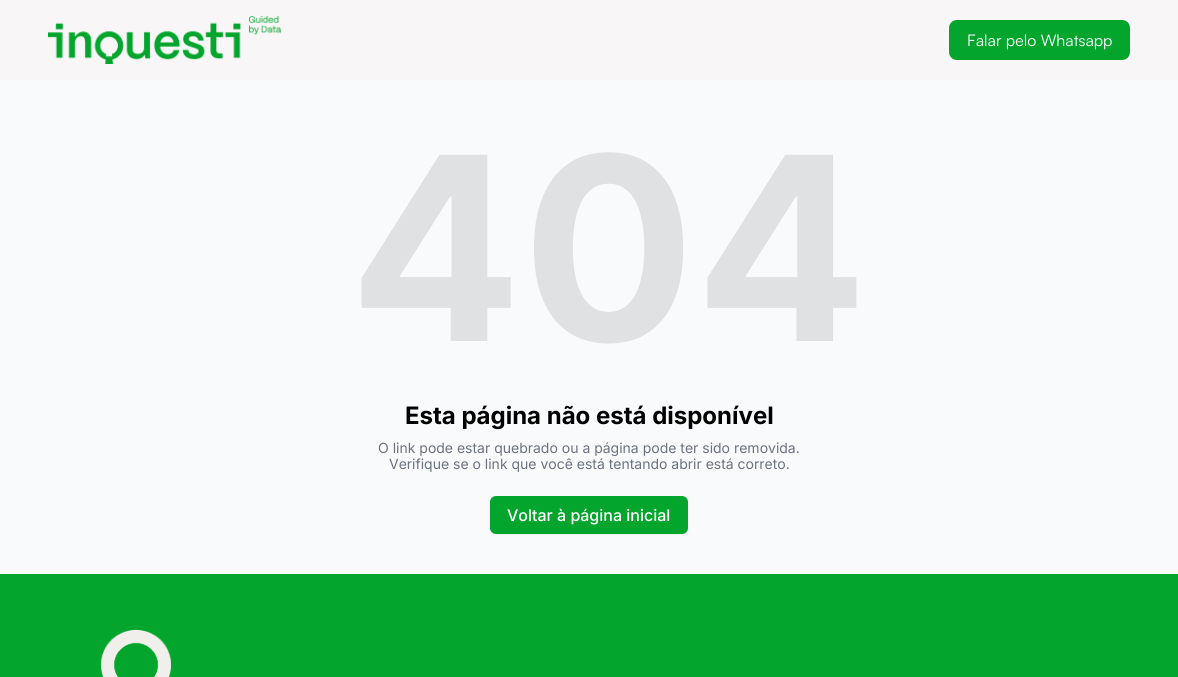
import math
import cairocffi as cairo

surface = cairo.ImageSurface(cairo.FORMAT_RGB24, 1178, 677)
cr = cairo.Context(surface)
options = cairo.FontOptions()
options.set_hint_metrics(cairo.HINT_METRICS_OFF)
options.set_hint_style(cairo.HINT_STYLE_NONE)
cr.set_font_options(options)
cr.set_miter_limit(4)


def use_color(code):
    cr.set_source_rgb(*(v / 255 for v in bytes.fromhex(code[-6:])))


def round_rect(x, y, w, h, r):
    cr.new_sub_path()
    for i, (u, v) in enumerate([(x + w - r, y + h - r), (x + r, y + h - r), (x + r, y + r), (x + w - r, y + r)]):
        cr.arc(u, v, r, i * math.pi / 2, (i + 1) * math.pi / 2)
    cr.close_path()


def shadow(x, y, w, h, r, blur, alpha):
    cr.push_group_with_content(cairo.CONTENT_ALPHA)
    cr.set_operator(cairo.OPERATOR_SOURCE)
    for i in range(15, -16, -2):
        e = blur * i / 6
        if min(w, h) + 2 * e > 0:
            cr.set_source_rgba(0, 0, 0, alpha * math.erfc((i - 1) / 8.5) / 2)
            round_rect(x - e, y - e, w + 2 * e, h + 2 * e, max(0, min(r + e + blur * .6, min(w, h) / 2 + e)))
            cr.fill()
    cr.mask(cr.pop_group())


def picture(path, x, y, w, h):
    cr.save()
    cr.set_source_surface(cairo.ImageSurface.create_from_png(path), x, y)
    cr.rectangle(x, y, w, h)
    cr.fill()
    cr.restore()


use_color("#f9fafb")
cr.paint()
use_color("#f8f6f6")
cr.rectangle(0, 0, 1178, 80)
cr.fill()
picture("img1.png", 48, 16, 233, 48)
use_color("#03a52c")
round_rect(950, 21, 179, 38, 7)
cr.fill_preserve()
cr.stroke()
cr.select_font_face("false")
cr.set_font_size(16)
use_color("#ffffff")
cr.move_to(967, 46)
cr.show_text("Falar pelo Whatsapp")
cr.select_font_face("Inter", cairo.FONT_SLANT_NORMAL, cairo.FONT_WEIGHT_BOLD)
cr.set_font_size(256)
use_color("#e0e1e2")
cr.move_to(349, 341)
cr.show_text("404")
cr.set_font_size(24)
use_color("#000000")
cr.move_to(405, 424)
cr.show_text("Esta página não está disponível")
cr.select_font_face("Inter")
cr.set_font_size(14)
use_color("#6b7280")
cr.move_to(378, 453)
cr.show_text("O link pode estar quebrado ou a página pode ter sido removida.")
cr.move_to(389, 469)
cr.show_text("Verifique se o link que você está tentando abrir está correto.")
use_color("#000000")
shadow(490, 497, 198, 38, 6, 1, 0.05)
use_color("#03a52c")
round_rect(490, 496, 198, 38, 6)
cr.fill()
cr.select_font_face("Inter Medium")
cr.set_font_size(16)
use_color("#ffffff")
cr.move_to(507, 521)
cr.show_text("Voltar à página inicial")
use_color("#03a52c")
cr.rectangle(0, 574, 1178, 103)
cr.fill()
picture("img2.png", 101, 630, 70, 47)
surface.write_to_png("result.png")
